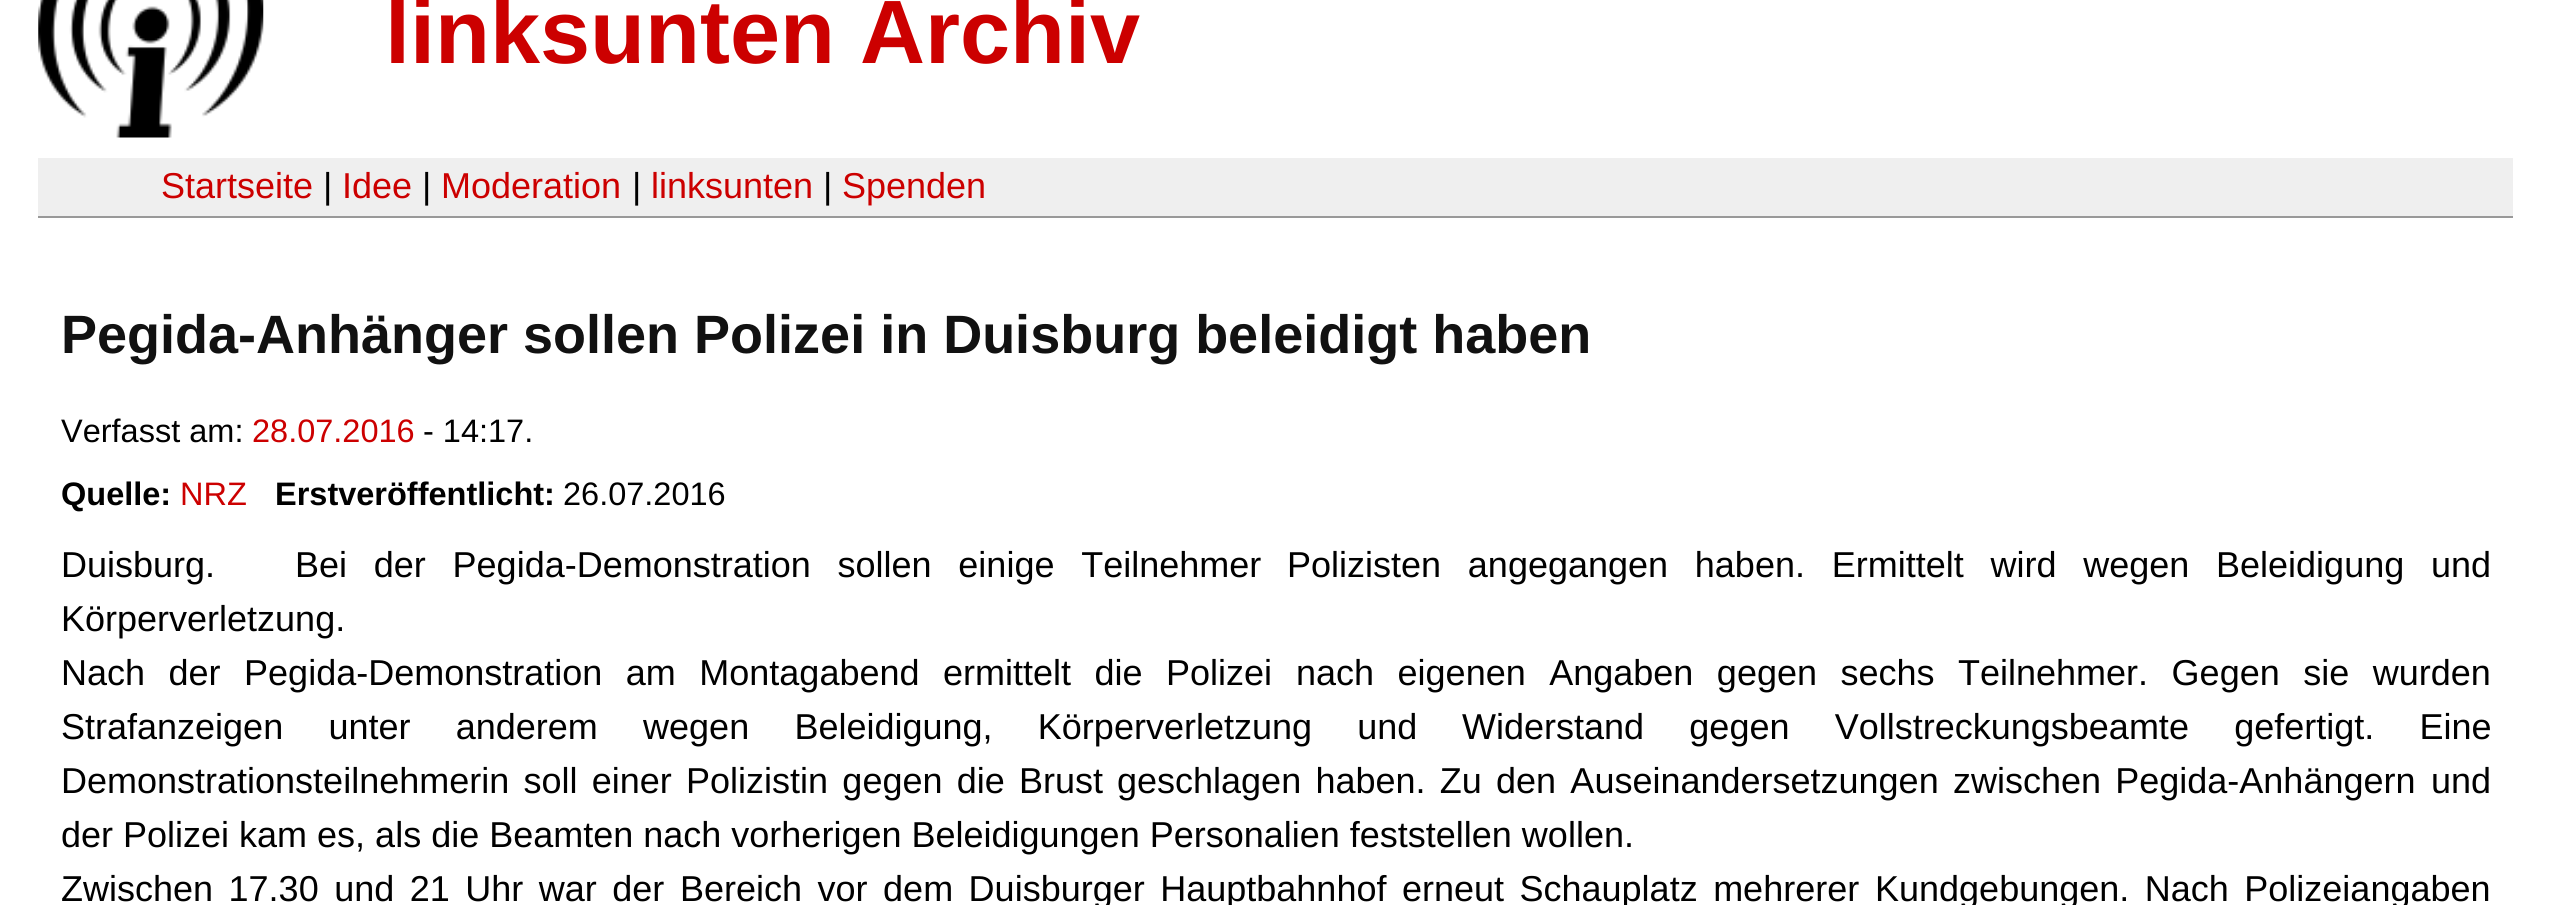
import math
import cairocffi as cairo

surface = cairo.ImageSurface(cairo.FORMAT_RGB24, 2551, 905)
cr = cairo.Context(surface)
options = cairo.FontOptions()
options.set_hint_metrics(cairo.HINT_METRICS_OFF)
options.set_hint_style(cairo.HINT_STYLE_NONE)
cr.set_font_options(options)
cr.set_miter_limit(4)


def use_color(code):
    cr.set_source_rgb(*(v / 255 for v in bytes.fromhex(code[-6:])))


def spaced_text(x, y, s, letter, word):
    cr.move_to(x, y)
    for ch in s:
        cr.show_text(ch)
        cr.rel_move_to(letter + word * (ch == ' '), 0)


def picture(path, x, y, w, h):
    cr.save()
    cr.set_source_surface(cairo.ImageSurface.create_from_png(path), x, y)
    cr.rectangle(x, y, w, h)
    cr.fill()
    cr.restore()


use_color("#ffffff")
cr.paint()
picture("img1.png", 38, 0, 226, 138)
cr.select_font_face("Liberation Sans", cairo.FONT_SLANT_NORMAL, cairo.FONT_WEIGHT_BOLD)
cr.set_font_size(90)
use_color("#cc0000")
cr.move_to(385, 63)
cr.show_text("linksunten Archiv")
use_color("#efefef")
cr.rectangle(38, 158, 2475, 58)
cr.fill()
use_color("#999999")
cr.rectangle(38, 216, 2475, 2)
cr.fill()
cr.select_font_face("Liberation Sans")
cr.set_font_size(36)
use_color("#cc0000")
cr.move_to(161, 198)
cr.show_text("Startseite")
use_color("#000000")
cr.move_to(323, 198)
cr.show_text("|")
use_color("#cc0000")
cr.move_to(342, 198)
cr.show_text("Idee")
use_color("#000000")
cr.move_to(422, 198)
cr.show_text("|")
use_color("#cc0000")
cr.move_to(441, 198)
cr.show_text("Moderation")
use_color("#000000")
cr.move_to(632, 198)
cr.show_text("|")
use_color("#cc0000")
cr.move_to(651, 198)
cr.show_text("linksunten")
use_color("#000000")
cr.move_to(823, 198)
cr.show_text("|")
use_color("#cc0000")
cr.move_to(842, 198)
cr.show_text("Spenden")
cr.select_font_face("Liberation Sans", cairo.FONT_SLANT_NORMAL, cairo.FONT_WEIGHT_BOLD)
cr.set_font_size(54)
use_color("#111111")
cr.move_to(61, 353)
cr.show_text("Pegida-Anhänger sollen Polizei in Duisburg beleidigt haben")
cr.select_font_face("Liberation Sans")
cr.set_font_size(32.5)
use_color("#000000")
cr.move_to(61, 442)
cr.show_text("Verfasst am:")
use_color("#cc0000")
cr.move_to(252, 442)
cr.show_text("28.07.2016")
use_color("#000000")
cr.move_to(423, 442)
cr.show_text("- 14:17.")
cr.select_font_face("Liberation Sans", cairo.FONT_SLANT_NORMAL, cairo.FONT_WEIGHT_BOLD)
cr.move_to(61, 505)
cr.show_text("Quelle:")
cr.select_font_face("Liberation Sans")
use_color("#cc0000")
cr.move_to(180, 505)
cr.show_text("NRZ")
cr.select_font_face("Liberation Sans", cairo.FONT_SLANT_NORMAL, cairo.FONT_WEIGHT_BOLD)
use_color("#000000")
cr.move_to(275, 505)
cr.show_text("Erstveröffentlicht:")
cr.select_font_face("Liberation Sans")
cr.move_to(563, 505)
cr.show_text("26.07.2016")
cr.set_font_size(36)
cr.move_to(61, 577)
cr.show_text("Duisburg.")
spaced_text(295, 577, "Bei der Pegida-Demonstration sollen einige Teilnehmer", 0, 16.75)
spaced_text(1287, 577, "Polizisten angegangen haben. Ermittelt wird wegen Beleidigung und", 0, 16.75)
cr.move_to(61, 631)
cr.show_text("Körperverletzung.")
spaced_text(61, 685, "Nach der Pegida-Demonstration am Montagabend ermittelt die Polizei", 0, 13.5)
spaced_text(1296, 685, "nach eigenen Angaben gegen sechs Teilnehmer. Gegen sie wurden", 0, 13.5)
spaced_text(61, 739, "Strafanzeigen unter anderem wegen Beleidigung, Körperverletzung und", 0, 35.25)
spaced_text(1462, 739, "Widerstand gegen Vollstreckungsbeamte gefertigt. Eine", 0, 35.25)
spaced_text(61, 793, "Demonstrationsteilnehmerin soll einer Polizistin gegen die Brust", 0, 4.25)
spaced_text(1117, 793, "geschlagen haben. Zu den Auseinandersetzungen zwischen Pegida-Anhängern", 0, 4.25)
cr.move_to(2431, 793)
cr.show_text("und")
cr.move_to(61, 847)
cr.show_text("der Polizei kam es, als die Beamten nach vorherigen Beleidigungen Personalien feststellen wollen.")
spaced_text(61, 901, "Zwischen 17.30 und 21 Uhr war der", 0, 5.5)
spaced_text(680, 901, "Bereich vor dem Duisburger Hauptbahnhof erneut Schauplatz mehrerer", 0, 5.5)
spaced_text(1875, 901, "Kundgebungen. Nach Polizeiangaben", 0, 5.5)
surface.write_to_png("result.png")
